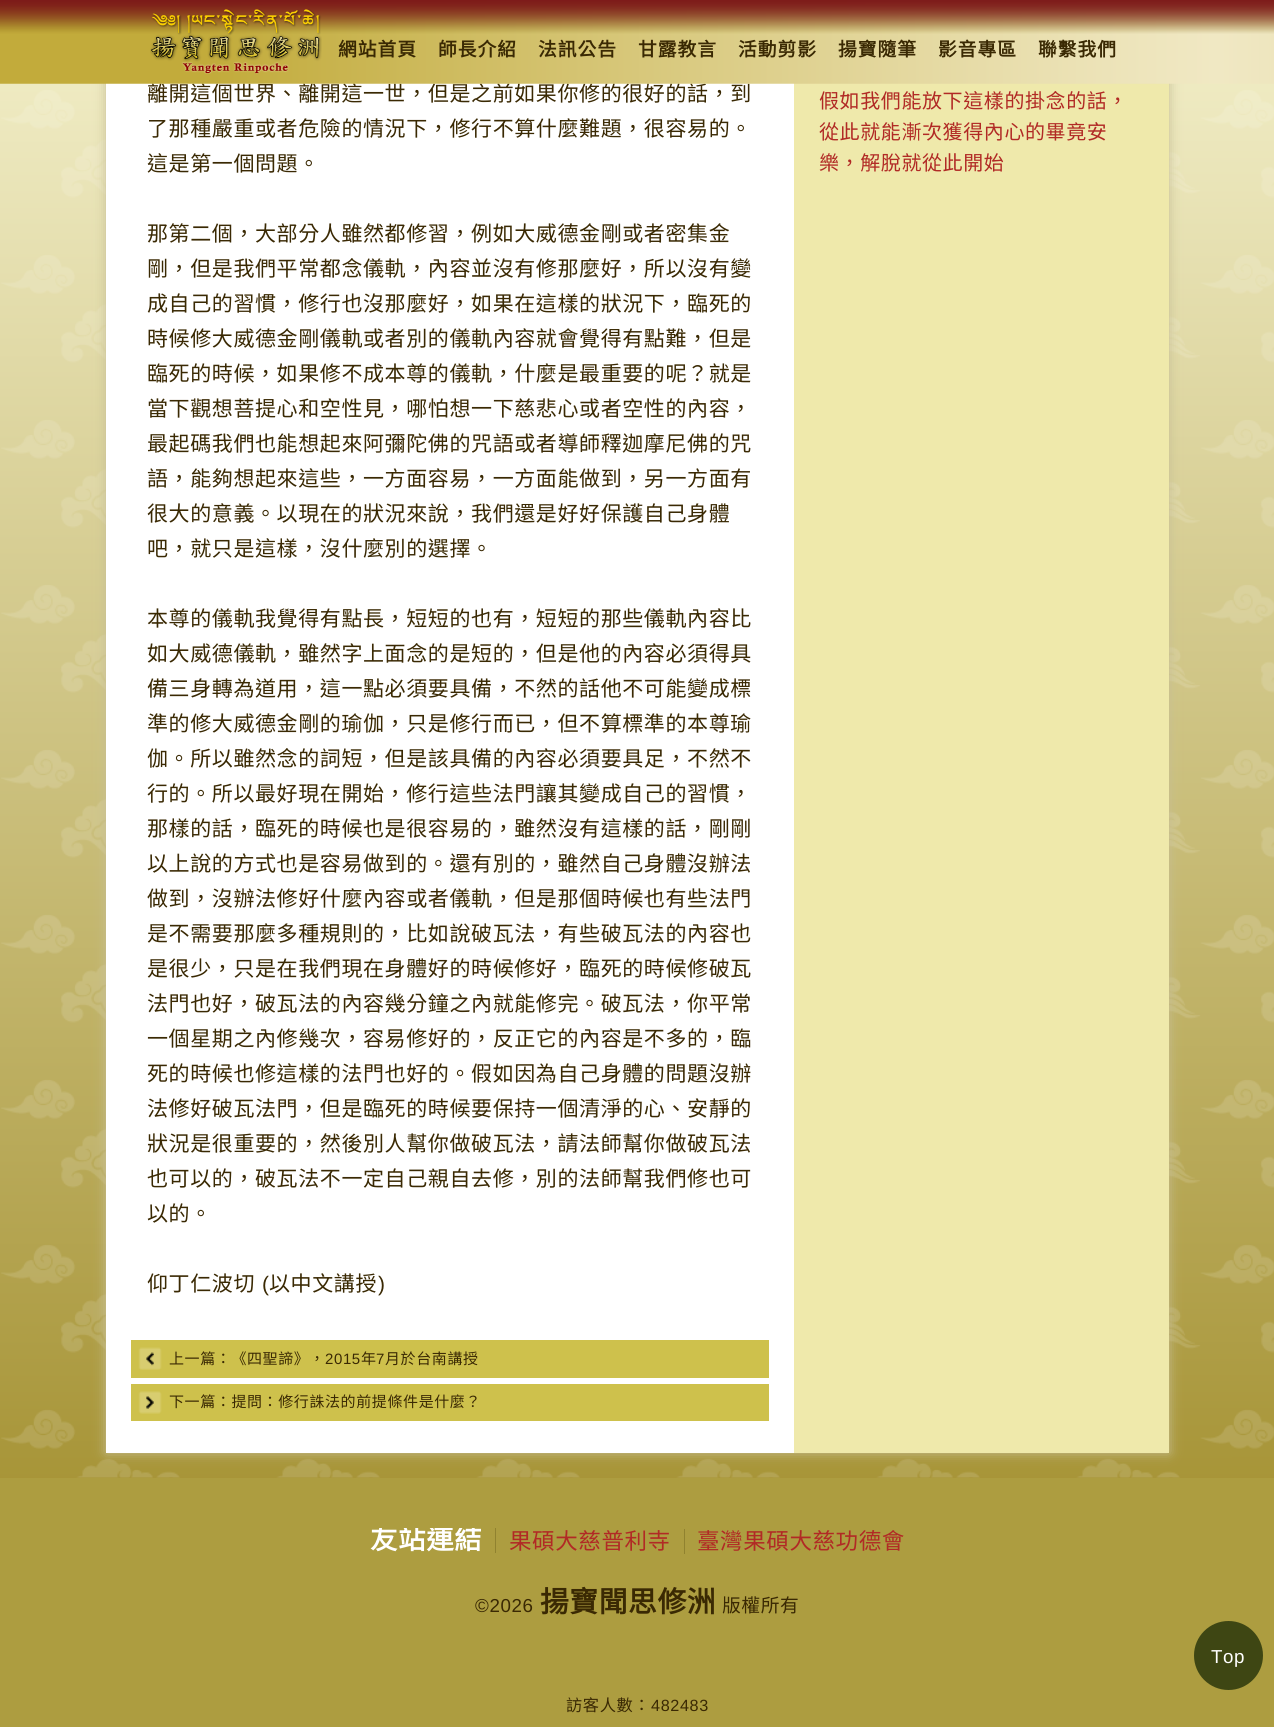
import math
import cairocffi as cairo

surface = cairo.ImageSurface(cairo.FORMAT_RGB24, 1274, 1727)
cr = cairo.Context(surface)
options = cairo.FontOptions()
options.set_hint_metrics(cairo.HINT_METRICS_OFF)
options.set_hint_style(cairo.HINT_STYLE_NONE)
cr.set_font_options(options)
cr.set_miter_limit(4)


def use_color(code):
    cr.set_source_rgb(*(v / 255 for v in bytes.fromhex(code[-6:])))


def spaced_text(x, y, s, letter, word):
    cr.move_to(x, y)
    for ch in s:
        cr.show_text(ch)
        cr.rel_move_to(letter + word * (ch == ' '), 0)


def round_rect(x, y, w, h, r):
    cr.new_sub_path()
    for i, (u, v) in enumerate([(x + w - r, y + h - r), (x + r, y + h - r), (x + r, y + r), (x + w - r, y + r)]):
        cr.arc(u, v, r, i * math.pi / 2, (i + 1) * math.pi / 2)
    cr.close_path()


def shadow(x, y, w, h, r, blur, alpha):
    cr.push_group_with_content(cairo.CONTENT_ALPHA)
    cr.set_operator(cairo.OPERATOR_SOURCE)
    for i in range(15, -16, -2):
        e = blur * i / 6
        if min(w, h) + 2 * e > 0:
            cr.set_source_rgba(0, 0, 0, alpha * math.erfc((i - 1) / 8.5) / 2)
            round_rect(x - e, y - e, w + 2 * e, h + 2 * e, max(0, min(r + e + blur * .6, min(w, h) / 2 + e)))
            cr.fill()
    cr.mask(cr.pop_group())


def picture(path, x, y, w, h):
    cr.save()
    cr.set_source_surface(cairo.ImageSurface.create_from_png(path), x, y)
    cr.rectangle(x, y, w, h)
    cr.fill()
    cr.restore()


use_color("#ffffff")
cr.paint()
gradient = cairo.LinearGradient(637, -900, 638, 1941)
gradient.add_color_stop_rgba(0.05, 0.549, 0.471, 0.09, 1)
gradient.add_color_stop_rgba(0.3, 0.961, 0.949, 0.808, 1)
gradient.add_color_stop_rgba(1, 0.565, 0.475, 0.043, 1)
cr.set_source(gradient)
cr.rectangle(0, 83, 1274, 1395)
cr.fill()
picture("img3.png", 1, 90, 1273, 1388)
use_color("#c5be95")
shadow(106, -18, 1063, 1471, 0, 6, 1)
use_color("#efe9ab")
cr.rectangle(794, 83, 375, 1370)
cr.fill()
use_color("#ffffff")
cr.rectangle(106, 83, 688, 1370)
cr.fill()
cr.select_font_face("Noto Sans CJK TC")
cr.set_font_size(21)
use_color("#3a2903")
spaced_text(147, 101, "離開這個世界、離開這一世，但是之前如果你修的很好的話，到", 0.6, 0)
picture("img1.png", 0, 0, 1274, 84)
picture("img2.png", 150, 9, 172, 65)
cr.select_font_face("Noto Sans CJK TC", cairo.FONT_SLANT_NORMAL, cairo.FONT_WEIGHT_BOLD)
cr.set_font_size(18.75)
spaced_text(338, 56, "網站首頁", 1, 0)
spaced_text(438, 56, "師長介紹", 1, 0)
spaced_text(538, 56, "法訊公告", 1, 0)
spaced_text(638, 56, "甘露教言", 1, 0)
spaced_text(738, 56, "活動剪影", 1, 0)
spaced_text(838, 56, "揚寶隨筆", 1, 0)
spaced_text(938, 56, "影音專區", 1, 0)
spaced_text(1038, 56, "聯繫我們", 1, 0)
cr.select_font_face("Noto Sans CJK TC")
cr.set_font_size(21)
spaced_text(147, 136, "了那種嚴重或者危險的情況下，修行不算什麼難題，很容易的。", 0.6, 0)
spaced_text(147, 171, "這是第一個問題。", 0.6, 0)
spaced_text(147, 241, "那第二個，大部分人雖然都修習，例如大威德金剛或者密集金", 0.6, 0)
spaced_text(147, 276, "剛，但是我們平常都念儀軌，內容並沒有修那麼好，所以沒有變", 0.6, 0)
spaced_text(147, 311, "成自己的習慣，修行也沒那麼好，如果在這樣的狀況下，臨死的", 0.6, 0)
spaced_text(147, 346, "時候修大威德金剛儀軌或者別的儀軌內容就會覺得有點難，但是", 0.6, 0)
spaced_text(147, 381, "臨死的時候，如果修不成本尊的儀軌，什麼是最重要的呢？就是", 0.6, 0)
spaced_text(147, 416, "當下觀想菩提心和空性見，哪怕想一下慈悲心或者空性的內容，", 0.6, 0)
spaced_text(147, 451, "最起碼我們也能想起來阿彌陀佛的咒語或者導師釋迦摩尼佛的咒", 0.6, 0)
spaced_text(147, 486, "語，能夠想起來這些，一方面容易，一方面能做到，另一方面有", 0.6, 0)
spaced_text(147, 521, "很大的意義。以現在的狀況來說，我們還是好好保護自己身體", 0.6, 0)
spaced_text(147, 556, "吧，就只是這樣，沒什麼別的選擇。", 0.6, 0)
spaced_text(147, 626, "本尊的儀軌我覺得有點長，短短的也有，短短的那些儀軌內容比", 0.6, 0)
spaced_text(147, 661, "如大威德儀軌，雖然字上面念的是短的，但是他的內容必須得具", 0.6, 0)
spaced_text(147, 696, "備三身轉為道用，這一點必須要具備，不然的話他不可能變成標", 0.6, 0)
spaced_text(147, 731, "準的修大威德金剛的瑜伽，只是修行而已，但不算標準的本尊瑜", 0.6, 0)
spaced_text(147, 766, "伽。所以雖然念的詞短，但是該具備的內容必須要具足，不然不", 0.6, 0)
spaced_text(147, 801, "行的。所以最好現在開始，修行這些法門讓其變成自己的習慣，", 0.6, 0)
spaced_text(147, 836, "那樣的話，臨死的時候也是很容易的，雖然沒有這樣的話，剛剛", 0.6, 0)
spaced_text(147, 871, "以上說的方式也是容易做到的。還有別的，雖然自己身體沒辦法", 0.6, 0)
spaced_text(147, 906, "做到，沒辦法修好什麼內容或者儀軌，但是那個時候也有些法門", 0.6, 0)
spaced_text(147, 941, "是不需要那麼多種規則的，比如說破瓦法，有些破瓦法的內容也", 0.6, 0)
spaced_text(147, 976, "是很少，只是在我們現在身體好的時候修好，臨死的時候修破瓦", 0.6, 0)
spaced_text(147, 1011, "法門也好，破瓦法的內容幾分鐘之內就能修完。破瓦法，你平常", 0.6, 0)
spaced_text(147, 1046, "一個星期之內修幾次，容易修好的，反正它的內容是不多的，臨", 0.6, 0)
spaced_text(147, 1081, "死的時候也修這樣的法門也好的。假如因為自己身體的問題沒辦", 0.6, 0)
spaced_text(147, 1116, "法修好破瓦法門，但是臨死的時候要保持一個清淨的心、安靜的", 0.6, 0)
spaced_text(147, 1151, "狀況是很重要的，然後別人幫你做破瓦法，請法師幫你做破瓦法", 0.6, 0)
spaced_text(147, 1186, "也可以的，破瓦法不一定自己親自去修，別的法師幫我們修也可", 0.6, 0)
spaced_text(147, 1221, "以的。", 0.6, 0)
spaced_text(147, 1291, "仰丁仁波切", 0.6, 0)
cr.select_font_face("Liberation Sans")
spaced_text(262, 1291, "(", 0.6, 0)
cr.select_font_face("Noto Sans CJK TC")
spaced_text(269, 1291, "以中文講授", 0.6, 0)
cr.select_font_face("Liberation Sans")
spaced_text(378, 1291, ")", 0.6, 0)
use_color("#cec14c")
cr.rectangle(131, 1340, 638, 38)
cr.fill()
picture("img4.png", 138, 1347, 24, 23)
cr.select_font_face("Noto Sans CJK TC")
cr.set_font_size(15)
use_color("#3a2903")
spaced_text(169, 1364, "上一篇：《四聖諦》，", 0.6, 0)
cr.select_font_face("Liberation Sans")
spaced_text(325, 1364, "2015", 0.6, 0)
cr.select_font_face("Noto Sans CJK TC")
spaced_text(361, 1364, "年", 0.6, 0)
cr.select_font_face("Liberation Sans")
spaced_text(376, 1364, "7", 0.6, 0)
cr.select_font_face("Noto Sans CJK TC")
spaced_text(385, 1364, "月於台南講授", 0.6, 0)
use_color("#cec14c")
cr.rectangle(131, 1384, 638, 37)
cr.fill()
picture("img5.png", 138, 1391, 24, 23)
use_color("#3a2903")
spaced_text(169, 1407, "下一篇：提問：修行誅法的前提條件是什麼？", 0.6, 0)
cr.set_font_size(20)
use_color("#b12a25")
spaced_text(819, 108, "假如我們能放下這樣的掛念的話，", 0.6, 0)
spaced_text(819, 139, "從此就能漸次獲得內心的畢竟安", 0.6, 0)
spaced_text(819, 170, "樂，解脫就從此開始", 0.6, 0)
use_color("#ad9d40")
cr.rectangle(0, 1478, 1274, 249)
cr.fill()
use_color("#90822f")
cr.rectangle(495, 1528, 1, 25)
cr.fill()
cr.save()
cr.rectangle(0, 1528, 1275, 31)
cr.clip()
cr.select_font_face("Noto Sans CJK TC", cairo.FONT_SLANT_NORMAL, cairo.FONT_WEIGHT_BOLD)
cr.set_font_size(27.5)
use_color("#ffffff")
spaced_text(370, 1549, "友站連結", 0.6, 0)
cr.restore()
cr.rectangle(684, 1529, 1, 25)
cr.fill()
cr.set_font_size(22.5)
use_color("#b12a25")
spaced_text(509, 1549, "果碩大慈普利寺", 0.6, 0)
spaced_text(697, 1549, "臺灣果碩大慈功德會", 0.6, 0)
cr.select_font_face("Liberation Sans")
cr.set_font_size(18.75)
use_color("#3a2903")
spaced_text(475, 1612, "©2026", 0.6, 0)
cr.select_font_face("Noto Sans CJK TC", cairo.FONT_SLANT_NORMAL, cairo.FONT_WEIGHT_BOLD)
cr.set_font_size(28.75)
spaced_text(540, 1612, "揚寶聞思修洲", 0.6, 0)
cr.select_font_face("Noto Sans CJK TC")
cr.set_font_size(18.75)
spaced_text(722, 1612, "版權所有", 0.6, 0)
cr.set_font_size(16.25)
spaced_text(566, 1711, "訪客人數：", 0.6, 0)
cr.select_font_face("Liberation Sans")
spaced_text(651, 1711, "482483", 0.6, 0)
use_color("#3e4613")
cr.new_path()
cr.arc(1228.5, 1655.5, 34.5, 0, 2 * math.pi)
cr.fill()
cr.set_font_size(18.75)
use_color("#ffffff")
spaced_text(1211, 1663, "Top", 0.6, 0)
surface.write_to_png("result.png")
